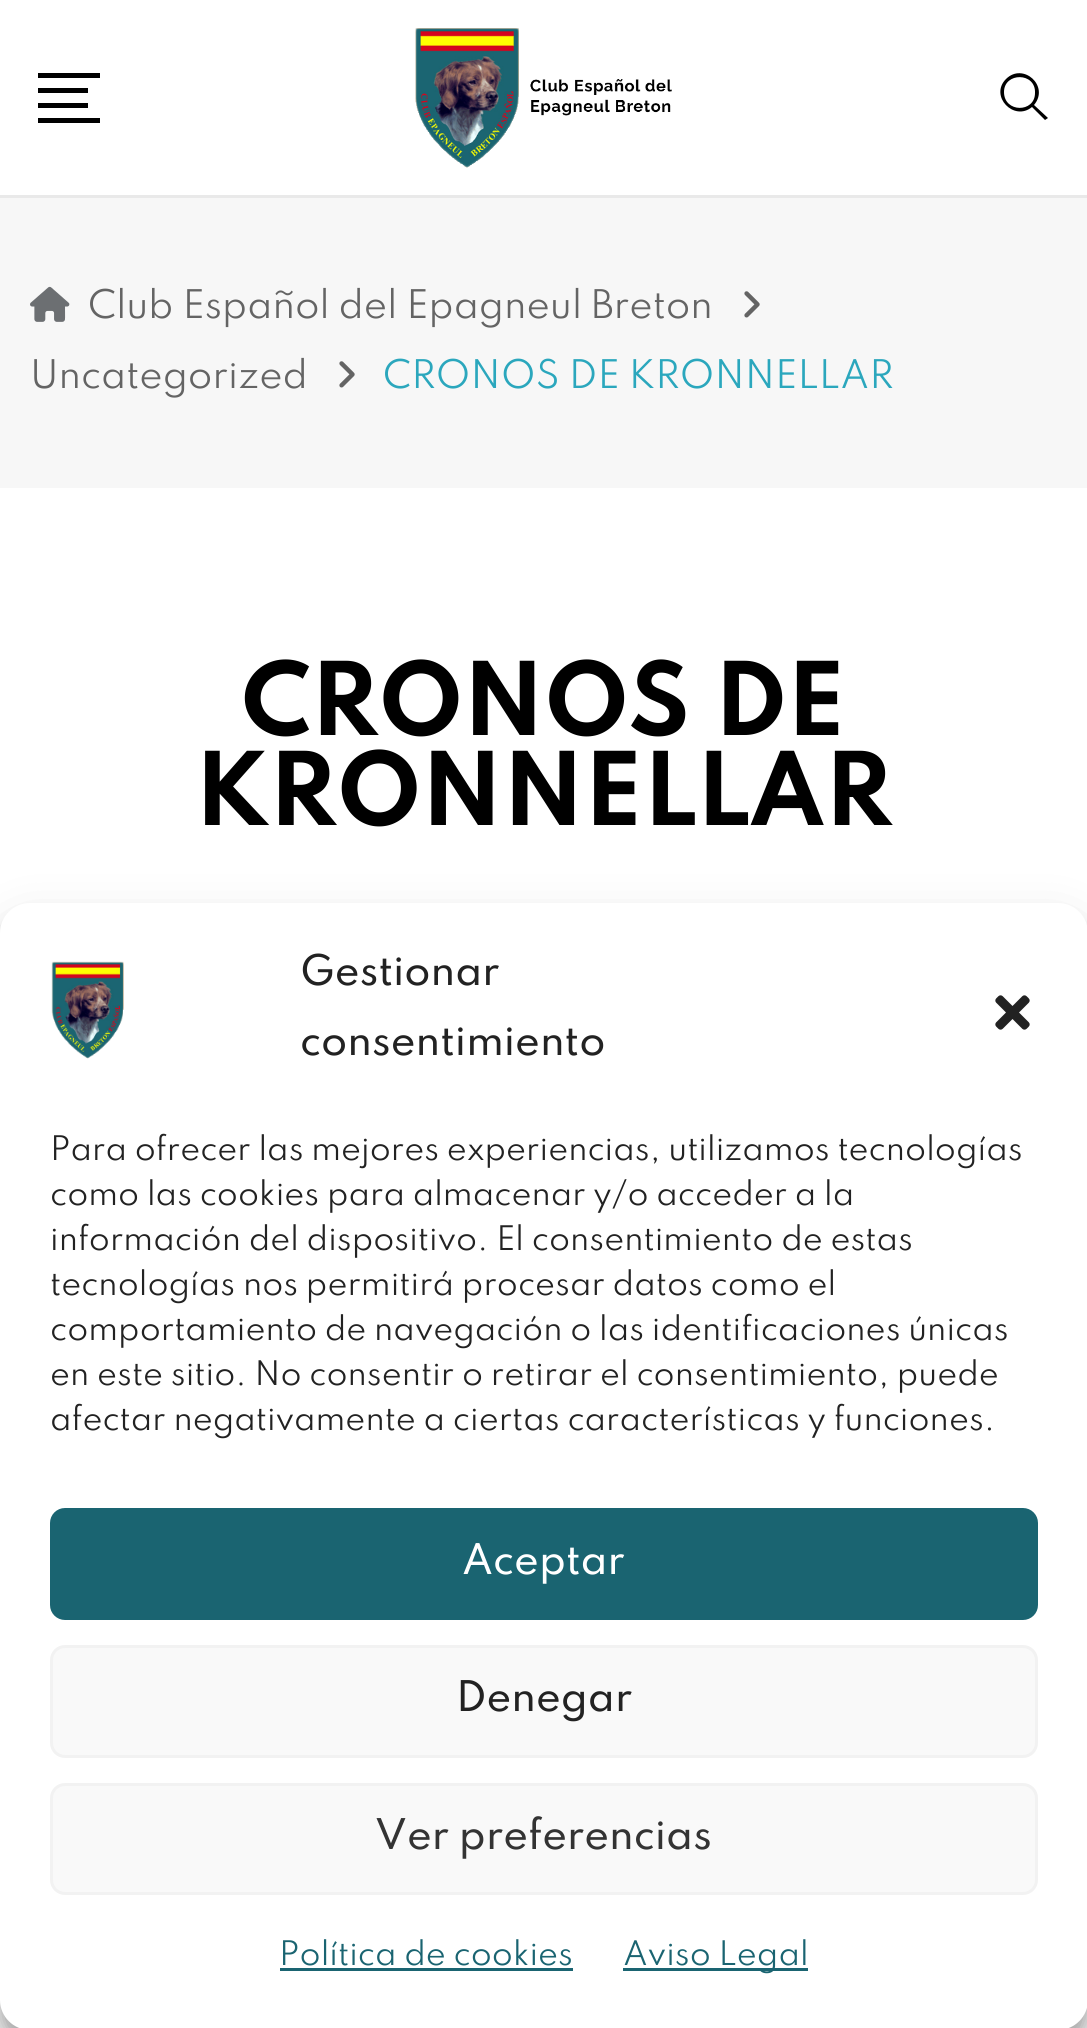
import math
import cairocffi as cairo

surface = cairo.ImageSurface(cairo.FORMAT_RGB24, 1087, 2028)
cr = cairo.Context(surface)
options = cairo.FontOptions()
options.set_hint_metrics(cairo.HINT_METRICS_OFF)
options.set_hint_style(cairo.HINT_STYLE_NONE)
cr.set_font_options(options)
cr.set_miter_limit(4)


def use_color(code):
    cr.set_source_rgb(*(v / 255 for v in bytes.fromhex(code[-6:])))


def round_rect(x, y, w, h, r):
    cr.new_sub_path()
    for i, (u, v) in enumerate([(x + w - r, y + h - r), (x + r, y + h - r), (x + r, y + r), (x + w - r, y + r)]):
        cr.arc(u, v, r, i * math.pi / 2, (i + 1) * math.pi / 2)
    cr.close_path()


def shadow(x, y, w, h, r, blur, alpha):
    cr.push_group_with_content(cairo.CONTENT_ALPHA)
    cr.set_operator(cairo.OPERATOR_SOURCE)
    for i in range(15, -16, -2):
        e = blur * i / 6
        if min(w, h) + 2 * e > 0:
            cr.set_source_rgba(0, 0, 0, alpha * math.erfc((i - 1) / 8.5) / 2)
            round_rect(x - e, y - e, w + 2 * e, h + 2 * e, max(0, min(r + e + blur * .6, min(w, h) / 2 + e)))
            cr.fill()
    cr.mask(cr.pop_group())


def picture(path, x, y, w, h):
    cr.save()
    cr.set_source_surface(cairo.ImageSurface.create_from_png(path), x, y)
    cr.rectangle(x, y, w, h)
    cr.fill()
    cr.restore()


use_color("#ffffff")
cr.paint()
use_color("#e9e9e9")
cr.rectangle(0, 195, 1087, 3)
cr.fill()
use_color("#000000")
cr.rectangle(38, 73, 62, 5)
cr.fill()
cr.rectangle(38, 88, 50, 5)
cr.fill()
cr.rectangle(38, 103, 50, 5)
cr.fill()
cr.rectangle(38, 118, 62, 5)
cr.fill()
picture("img1.png", 415, 28, 257, 140)
cr.new_path()
cr.move_to(1048, 118)
cr.line_to(1034, 105)
cr.curve_to(1050, 86, 1023, 62, 1006, 79)
cr.curve_to(989, 96, 1014, 122, 1032, 107)
cr.line_to(1045, 120)
cr.close_path()
cr.move_to(1004, 92)
cr.curve_to(1004, 72, 1036, 72, 1035, 93)
cr.curve_to(1035, 113, 1004, 113, 1004, 92)
cr.close_path()
cr.fill()
use_color("#f7f7f7")
cr.rectangle(0, 198, 1087, 290)
cr.fill()
picture("img2.png", 30, 286, 40, 36)
cr.select_font_face("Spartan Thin")
cr.set_font_size(35)
use_color("#646464")
cr.move_to(88, 318)
cr.show_text("Club Español del Epagneul Breton")
picture("img3.png", 744, 291, 16, 27)
cr.move_to(30, 388)
cr.show_text("Uncategorized")
picture("img3.png", 339, 361, 16, 27)
use_color("#2ba7bd")
cr.move_to(383, 388)
cr.show_text("CRONOS DE KRONNELLAR")
cr.select_font_face("Spartan Thin", cairo.FONT_SLANT_NORMAL, cairo.FONT_WEIGHT_BOLD)
cr.set_font_size(90)
use_color("#000000")
cr.move_to(242, 735)
cr.show_text("CRONOS DE")
cr.move_to(195, 825)
cr.show_text("KRONNELLAR")
use_color("#000000")
shadow(0, 918, 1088, 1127, 30, 7.5, 0.23)
shadow(0, 928, 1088, 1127, 30, 25, 0.19)
use_color("#ffffff")
round_rect(0, 903, 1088, 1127, 30)
cr.fill()
picture("img4.png", 51, 961, 73, 98)
cr.select_font_face("Spartan Thin Medium")
cr.set_font_size(37.5)
use_color("#222222")
cr.move_to(300, 985)
cr.show_text("Gestionar")
cr.move_to(300, 1055)
cr.show_text("consentimiento")
picture("img5.png", 995, 995, 35, 35)
cr.select_font_face("Spartan Thin")
cr.set_font_size(30)
cr.move_to(50, 1160)
cr.show_text("Para ofrecer las mejores experiencias, utilizamos tecnologías")
cr.move_to(50, 1205)
cr.show_text("como las cookies para almacenar y/o acceder a la")
cr.move_to(50, 1250)
cr.show_text("información del dispositivo. El consentimiento de estas")
cr.move_to(50, 1295)
cr.show_text("tecnologías nos permitirá procesar datos como el")
cr.move_to(50, 1340)
cr.show_text("comportamiento de navegación o las identificaciones únicas")
cr.move_to(50, 1385)
cr.show_text("en este sitio. No consentir o retirar el consentimiento, puede")
cr.move_to(50, 1430)
cr.show_text("afectar negativamente a ciertas características y funciones.")
use_color("#1a6471")
round_rect(51.5, 1509.5, 985, 109, 13.5)
cr.fill_preserve()
cr.set_line_width(3)
cr.stroke()
cr.select_font_face("Spartan Thin Medium")
cr.set_font_size(37.5)
use_color("#ffffff")
cr.move_to(462, 1574)
cr.show_text("Aceptar")
use_color("#f9f9f9")
round_rect(51.5, 1646.5, 985, 110, 13.5)
cr.fill_preserve()
use_color("#f2f2f2")
cr.stroke()
use_color("#222222")
cr.move_to(456, 1711)
cr.show_text("Denegar")
use_color("#f9f9f9")
round_rect(51.5, 1784.5, 985, 109, 13.5)
cr.fill_preserve()
use_color("#f2f2f2")
cr.stroke()
use_color("#333333")
cr.move_to(375, 1849)
cr.show_text("Ver preferencias")
cr.select_font_face("Spartan Thin")
cr.set_font_size(30)
use_color("#1a6471")
cr.move_to(279, 1965)
cr.show_text("Política de cookies")
cr.rectangle(280, 1968, 293, 3)
cr.fill()
cr.rectangle(623, 1968, 185, 3)
cr.fill()
cr.move_to(623, 1965)
cr.show_text("Aviso Legal")
surface.write_to_png("result.png")
